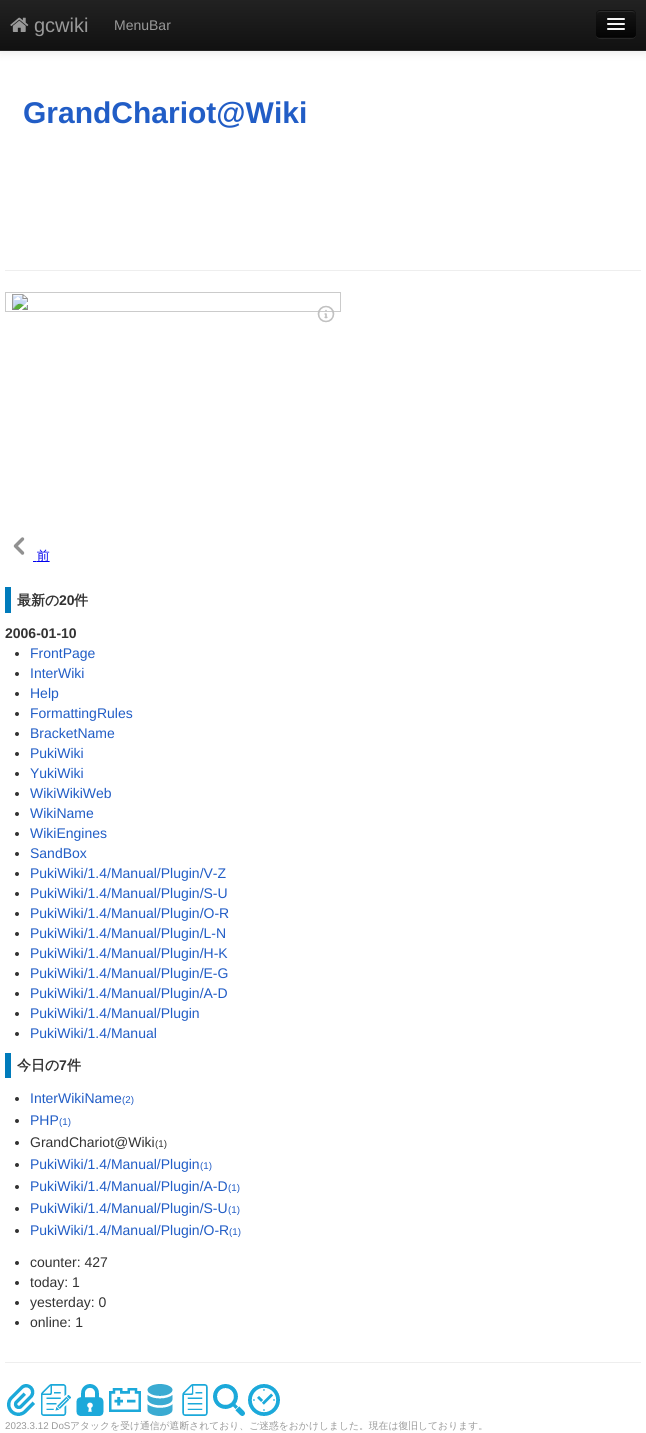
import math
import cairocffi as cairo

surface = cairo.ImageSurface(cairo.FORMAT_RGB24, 646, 1433)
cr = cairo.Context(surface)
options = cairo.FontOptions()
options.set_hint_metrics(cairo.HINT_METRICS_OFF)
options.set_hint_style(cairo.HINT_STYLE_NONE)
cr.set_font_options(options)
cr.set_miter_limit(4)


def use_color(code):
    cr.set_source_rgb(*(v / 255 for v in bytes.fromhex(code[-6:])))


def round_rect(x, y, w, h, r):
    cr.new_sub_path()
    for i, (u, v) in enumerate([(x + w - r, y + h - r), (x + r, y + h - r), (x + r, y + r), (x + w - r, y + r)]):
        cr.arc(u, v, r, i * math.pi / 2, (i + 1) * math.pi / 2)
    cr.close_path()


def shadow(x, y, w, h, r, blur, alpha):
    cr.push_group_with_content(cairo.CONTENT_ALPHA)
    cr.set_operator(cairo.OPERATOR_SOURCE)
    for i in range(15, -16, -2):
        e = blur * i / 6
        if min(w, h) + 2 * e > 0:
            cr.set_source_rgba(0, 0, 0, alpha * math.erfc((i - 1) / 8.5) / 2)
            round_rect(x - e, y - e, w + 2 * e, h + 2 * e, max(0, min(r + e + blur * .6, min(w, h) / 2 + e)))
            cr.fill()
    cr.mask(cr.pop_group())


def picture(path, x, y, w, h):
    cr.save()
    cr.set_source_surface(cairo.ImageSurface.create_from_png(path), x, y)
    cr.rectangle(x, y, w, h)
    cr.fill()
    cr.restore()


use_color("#ffffff")
cr.paint()
use_color("#000000")
shadow(0, 1, 646, 51, 0, 5, 0.1)
gradient = cairo.LinearGradient(323, 0, 323, 50)
gradient.add_color_stop_rgba(0, 0.133, 0.133, 0.133, 1)
gradient.add_color_stop_rgba(1, 0.067, 0.067, 0.067, 1)
cr.set_source(gradient)
cr.rectangle(0, 0, 646, 50)
cr.fill()
use_color("#252525")
cr.rectangle(0, 50, 646, 1)
cr.fill()
picture("img1.png", 10, 17, 19, 15)
cr.select_font_face("Liberation Sans")
cr.set_font_size(20)
use_color("#999999")
cr.move_to(34, 32)
cr.show_text("gcwiki")
cr.set_font_size(14)
cr.move_to(114, 30)
cr.show_text("MenuBar")
use_color("#272727")
cr.new_path()
cr.move_to(596, 34)
cr.curve_to(596, 40, 601, 39, 605, 39)
cr.line_to(627, 39)
cr.curve_to(631, 39, 636, 40, 636, 34)
cr.curve_to(636, 36, 634, 38, 632, 38)
cr.line_to(600, 38)
cr.curve_to(598, 38, 596, 36, 596, 34)
cr.close_path()
cr.fill()
use_color("#0e0e0e")
round_rect(596, 10, 40, 28, 4)
cr.fill()
cr.save()
round_rect(596, 10, 40, 28, 4)
cr.clip()
gradient = cairo.LinearGradient(616, 11, 616, 37)
gradient.add_color_stop_rgba(0, 0.082, 0.082, 0.082, 1)
gradient.add_color_stop_rgba(1, 0.016, 0.016, 0.016, 1)
cr.set_source(gradient)
cr.rectangle(596, 11, 40, 26)
cr.fill()
cr.restore()
use_color("#2c2c2c")
cr.new_path()
cr.move_to(600, 12)
cr.line_to(632, 12)
cr.curve_to(634, 12, 635, 13, 635, 15)
cr.curve_to(635, 10, 631, 11, 626.5, 11)
cr.line_to(605.5, 11)
cr.curve_to(601, 11, 597, 10, 597, 15)
cr.curve_to(597, 13, 598, 12, 600, 12)
cr.close_path()
cr.fill()
cr.new_path()
cr.move_to(634.5, 36.5)
cr.curve_to(634, 37, 633, 37.5, 632, 37.5)
cr.line_to(600, 37.5)
cr.curve_to(599, 37.5, 598, 37, 597.5, 36.5)
cr.set_source_rgba(0, 0, 0, 0.25)
cr.set_line_width(1)
cr.stroke()
use_color("#0b0b0b")
cr.new_path()
cr.move_to(607, 19.5)
cr.curve_to(606, 21.5, 610.5, 21, 610.5, 21)
cr.line_to(621.5, 21)
cr.curve_to(621.5, 21, 626, 21.5, 625, 19.5)
cr.curve_to(624, 20.5, 617.5, 20, 616, 20)
cr.curve_to(614.5, 20, 608, 20.5, 607, 19.5)
cr.close_path()
cr.fill()
use_color("#f5f5f5")
round_rect(607, 18, 18, 2, 1)
cr.fill()
use_color("#090909")
cr.new_path()
cr.move_to(607, 24.5)
cr.curve_to(606, 26.5, 610.5, 26, 610.5, 26)
cr.line_to(621.5, 26)
cr.curve_to(621.5, 26, 626, 26.5, 625, 24.5)
cr.curve_to(624, 25.5, 617.5, 25, 616, 25)
cr.curve_to(614.5, 25, 608, 25.5, 607, 24.5)
cr.close_path()
cr.fill()
use_color("#f5f5f5")
round_rect(607, 23, 18, 2, 1)
cr.fill()
round_rect(607, 28, 18, 2, 1)
cr.fill()
cr.select_font_face("Liberation Sans", cairo.FONT_SLANT_NORMAL, cairo.FONT_WEIGHT_BOLD)
cr.set_font_size(30)
use_color("#215dc6")
cr.move_to(23, 123)
cr.show_text("GrandChariot@Wiki")
use_color("#eeeeee")
cr.rectangle(5, 270, 636, 1)
cr.fill()
picture("img2.png", 5, 292, 336, 270)
use_color("#007bbb")
cr.rectangle(5, 587, 6, 26)
cr.fill()
cr.select_font_face("WenQuanYi Zen Hei", cairo.FONT_SLANT_NORMAL, cairo.FONT_WEIGHT_BOLD)
cr.set_font_size(14)
use_color("#333333")
cr.move_to(17, 605)
cr.show_text("最新の")
cr.select_font_face("Liberation Sans", cairo.FONT_SLANT_NORMAL, cairo.FONT_WEIGHT_BOLD)
cr.move_to(59, 605)
cr.show_text("20")
cr.select_font_face("WenQuanYi Zen Hei", cairo.FONT_SLANT_NORMAL, cairo.FONT_WEIGHT_BOLD)
cr.move_to(74, 605)
cr.show_text("件")
cr.select_font_face("Liberation Sans", cairo.FONT_SLANT_NORMAL, cairo.FONT_WEIGHT_BOLD)
cr.move_to(5, 638)
cr.show_text("2006-01-10")
cr.new_path()
cr.arc(17, 654, 2, 0, 2 * math.pi)
cr.fill()
cr.select_font_face("Liberation Sans")
use_color("#215dc6")
cr.move_to(30, 658)
cr.show_text("FrontPage")
use_color("#333333")
cr.new_path()
cr.arc(17, 674, 2, 0, 2 * math.pi)
cr.fill()
use_color("#215dc6")
cr.move_to(30, 678)
cr.show_text("InterWiki")
use_color("#333333")
cr.new_path()
cr.arc(17, 694, 2, 0, 2 * math.pi)
cr.fill()
use_color("#215dc6")
cr.move_to(30, 698)
cr.show_text("Help")
use_color("#333333")
cr.new_path()
cr.arc(17, 714, 2, 0, 2 * math.pi)
cr.fill()
use_color("#215dc6")
cr.move_to(30, 718)
cr.show_text("FormattingRules")
use_color("#333333")
cr.new_path()
cr.arc(17, 734, 2, 0, 2 * math.pi)
cr.fill()
use_color("#215dc6")
cr.move_to(30, 738)
cr.show_text("BracketName")
use_color("#333333")
cr.new_path()
cr.arc(17, 754, 2, 0, 2 * math.pi)
cr.fill()
use_color("#215dc6")
cr.move_to(30, 758)
cr.show_text("PukiWiki")
use_color("#333333")
cr.new_path()
cr.arc(17, 774, 2, 0, 2 * math.pi)
cr.fill()
use_color("#215dc6")
cr.move_to(30, 778)
cr.show_text("YukiWiki")
use_color("#333333")
cr.new_path()
cr.arc(17, 794, 2, 0, 2 * math.pi)
cr.fill()
use_color("#215dc6")
cr.move_to(30, 798)
cr.show_text("WikiWikiWeb")
use_color("#333333")
cr.new_path()
cr.arc(17, 814, 2, 0, 2 * math.pi)
cr.fill()
use_color("#215dc6")
cr.move_to(30, 818)
cr.show_text("WikiName")
use_color("#333333")
cr.new_path()
cr.arc(17, 834, 2, 0, 2 * math.pi)
cr.fill()
use_color("#215dc6")
cr.move_to(30, 838)
cr.show_text("WikiEngines")
use_color("#333333")
cr.new_path()
cr.arc(17, 854, 2, 0, 2 * math.pi)
cr.fill()
use_color("#215dc6")
cr.move_to(30, 858)
cr.show_text("SandBox")
use_color("#333333")
cr.new_path()
cr.arc(17, 874, 2, 0, 2 * math.pi)
cr.fill()
use_color("#215dc6")
cr.move_to(30, 878)
cr.show_text("PukiWiki/1.4/Manual/Plugin/V-Z")
use_color("#333333")
cr.new_path()
cr.arc(17, 894, 2, 0, 2 * math.pi)
cr.fill()
use_color("#215dc6")
cr.move_to(30, 898)
cr.show_text("PukiWiki/1.4/Manual/Plugin/S-U")
use_color("#333333")
cr.new_path()
cr.arc(17, 914, 2, 0, 2 * math.pi)
cr.fill()
use_color("#215dc6")
cr.move_to(30, 918)
cr.show_text("PukiWiki/1.4/Manual/Plugin/O-R")
use_color("#333333")
cr.new_path()
cr.arc(17, 934, 2, 0, 2 * math.pi)
cr.fill()
use_color("#215dc6")
cr.move_to(30, 938)
cr.show_text("PukiWiki/1.4/Manual/Plugin/L-N")
use_color("#333333")
cr.new_path()
cr.arc(17, 954, 2, 0, 2 * math.pi)
cr.fill()
use_color("#215dc6")
cr.move_to(30, 958)
cr.show_text("PukiWiki/1.4/Manual/Plugin/H-K")
use_color("#333333")
cr.new_path()
cr.arc(17, 974, 2, 0, 2 * math.pi)
cr.fill()
use_color("#215dc6")
cr.move_to(30, 978)
cr.show_text("PukiWiki/1.4/Manual/Plugin/E-G")
use_color("#333333")
cr.new_path()
cr.arc(17, 994, 2, 0, 2 * math.pi)
cr.fill()
use_color("#215dc6")
cr.move_to(30, 998)
cr.show_text("PukiWiki/1.4/Manual/Plugin/A-D")
use_color("#333333")
cr.new_path()
cr.arc(17, 1014, 2, 0, 2 * math.pi)
cr.fill()
use_color("#215dc6")
cr.move_to(30, 1018)
cr.show_text("PukiWiki/1.4/Manual/Plugin")
use_color("#333333")
cr.new_path()
cr.arc(17, 1034, 2, 0, 2 * math.pi)
cr.fill()
use_color("#215dc6")
cr.move_to(30, 1038)
cr.show_text("PukiWiki/1.4/Manual")
use_color("#007bbb")
cr.rectangle(5, 1053, 6, 25)
cr.fill()
cr.select_font_face("WenQuanYi Zen Hei", cairo.FONT_SLANT_NORMAL, cairo.FONT_WEIGHT_BOLD)
use_color("#333333")
cr.move_to(17, 1070)
cr.show_text("今日の")
cr.select_font_face("Liberation Sans", cairo.FONT_SLANT_NORMAL, cairo.FONT_WEIGHT_BOLD)
cr.move_to(59, 1070)
cr.show_text("7")
cr.select_font_face("WenQuanYi Zen Hei", cairo.FONT_SLANT_NORMAL, cairo.FONT_WEIGHT_BOLD)
cr.move_to(67, 1070)
cr.show_text("件")
cr.new_path()
cr.arc(17, 1099, 2, 0, 2 * math.pi)
cr.fill()
cr.select_font_face("Liberation Sans")
use_color("#215dc6")
cr.move_to(30, 1103)
cr.show_text("InterWikiName")
cr.set_font_size(9.8)
cr.move_to(122, 1103)
cr.show_text("(2)")
use_color("#333333")
cr.new_path()
cr.arc(17, 1121, 2, 0, 2 * math.pi)
cr.fill()
cr.set_font_size(14)
use_color("#215dc6")
cr.move_to(30, 1125)
cr.show_text("PHP")
cr.set_font_size(9.8)
cr.move_to(59, 1125)
cr.show_text("(1)")
use_color("#333333")
cr.new_path()
cr.arc(17, 1143, 2, 0, 2 * math.pi)
cr.fill()
cr.set_font_size(14)
cr.move_to(30, 1147)
cr.show_text("GrandChariot@Wiki")
cr.set_font_size(9.8)
cr.move_to(155, 1147)
cr.show_text("(1)")
cr.new_path()
cr.arc(17, 1165, 2, 0, 2 * math.pi)
cr.fill()
cr.set_font_size(14)
use_color("#215dc6")
cr.move_to(30, 1169)
cr.show_text("PukiWiki/1.4/Manual/Plugin")
cr.set_font_size(9.8)
cr.move_to(200, 1169)
cr.show_text("(1)")
use_color("#333333")
cr.new_path()
cr.arc(17, 1187, 2, 0, 2 * math.pi)
cr.fill()
cr.set_font_size(14)
use_color("#215dc6")
cr.move_to(30, 1191)
cr.show_text("PukiWiki/1.4/Manual/Plugin/A-D")
cr.set_font_size(9.8)
cr.move_to(228, 1191)
cr.show_text("(1)")
use_color("#333333")
cr.new_path()
cr.arc(17, 1209, 2, 0, 2 * math.pi)
cr.fill()
cr.set_font_size(14)
use_color("#215dc6")
cr.move_to(30, 1213)
cr.show_text("PukiWiki/1.4/Manual/Plugin/S-U")
cr.set_font_size(9.8)
cr.move_to(228, 1213)
cr.show_text("(1)")
use_color("#333333")
cr.new_path()
cr.arc(17, 1231, 2, 0, 2 * math.pi)
cr.fill()
cr.set_font_size(14)
use_color("#215dc6")
cr.move_to(30, 1235)
cr.show_text("PukiWiki/1.4/Manual/Plugin/O-R")
cr.set_font_size(9.8)
cr.move_to(229, 1235)
cr.show_text("(1)")
use_color("#333333")
cr.new_path()
cr.arc(17, 1263, 2, 0, 2 * math.pi)
cr.fill()
cr.set_font_size(14)
cr.move_to(30, 1267)
cr.show_text("counter: 427")
cr.new_path()
cr.arc(17, 1283, 2, 0, 2 * math.pi)
cr.fill()
cr.move_to(30, 1287)
cr.show_text("today: 1")
cr.new_path()
cr.arc(17, 1303, 2, 0, 2 * math.pi)
cr.fill()
cr.move_to(30, 1307)
cr.show_text("yesterday: 0")
cr.new_path()
cr.arc(17, 1323, 2, 0, 2 * math.pi)
cr.fill()
cr.move_to(30, 1327)
cr.show_text("online: 1")
use_color("#eeeeee")
cr.rectangle(5, 1362, 636, 1)
cr.fill()
picture("img3.png", 7, 1384, 28, 32)
picture("img4.png", 41, 1384, 30, 32)
picture("img5.png", 76, 1384, 28, 32)
picture("img6.png", 109, 1388, 32, 24)
picture("img7.png", 147, 1384, 26, 32)
picture("img8.png", 182, 1384, 26, 32)
picture("img9.png", 213, 1384, 32, 32)
picture("img10.png", 248, 1384, 32, 32)
cr.set_font_size(9.8)
use_color("#999999")
cr.move_to(5, 1429)
cr.show_text("2023.3.12 DoS")
cr.select_font_face("WenQuanYi Zen Hei Medium")
cr.move_to(70, 1429)
cr.show_text("アタックを受け通信が遮断されており、ご迷惑をおかけしました。現在は復旧しております。")
surface.write_to_png("result.png")
